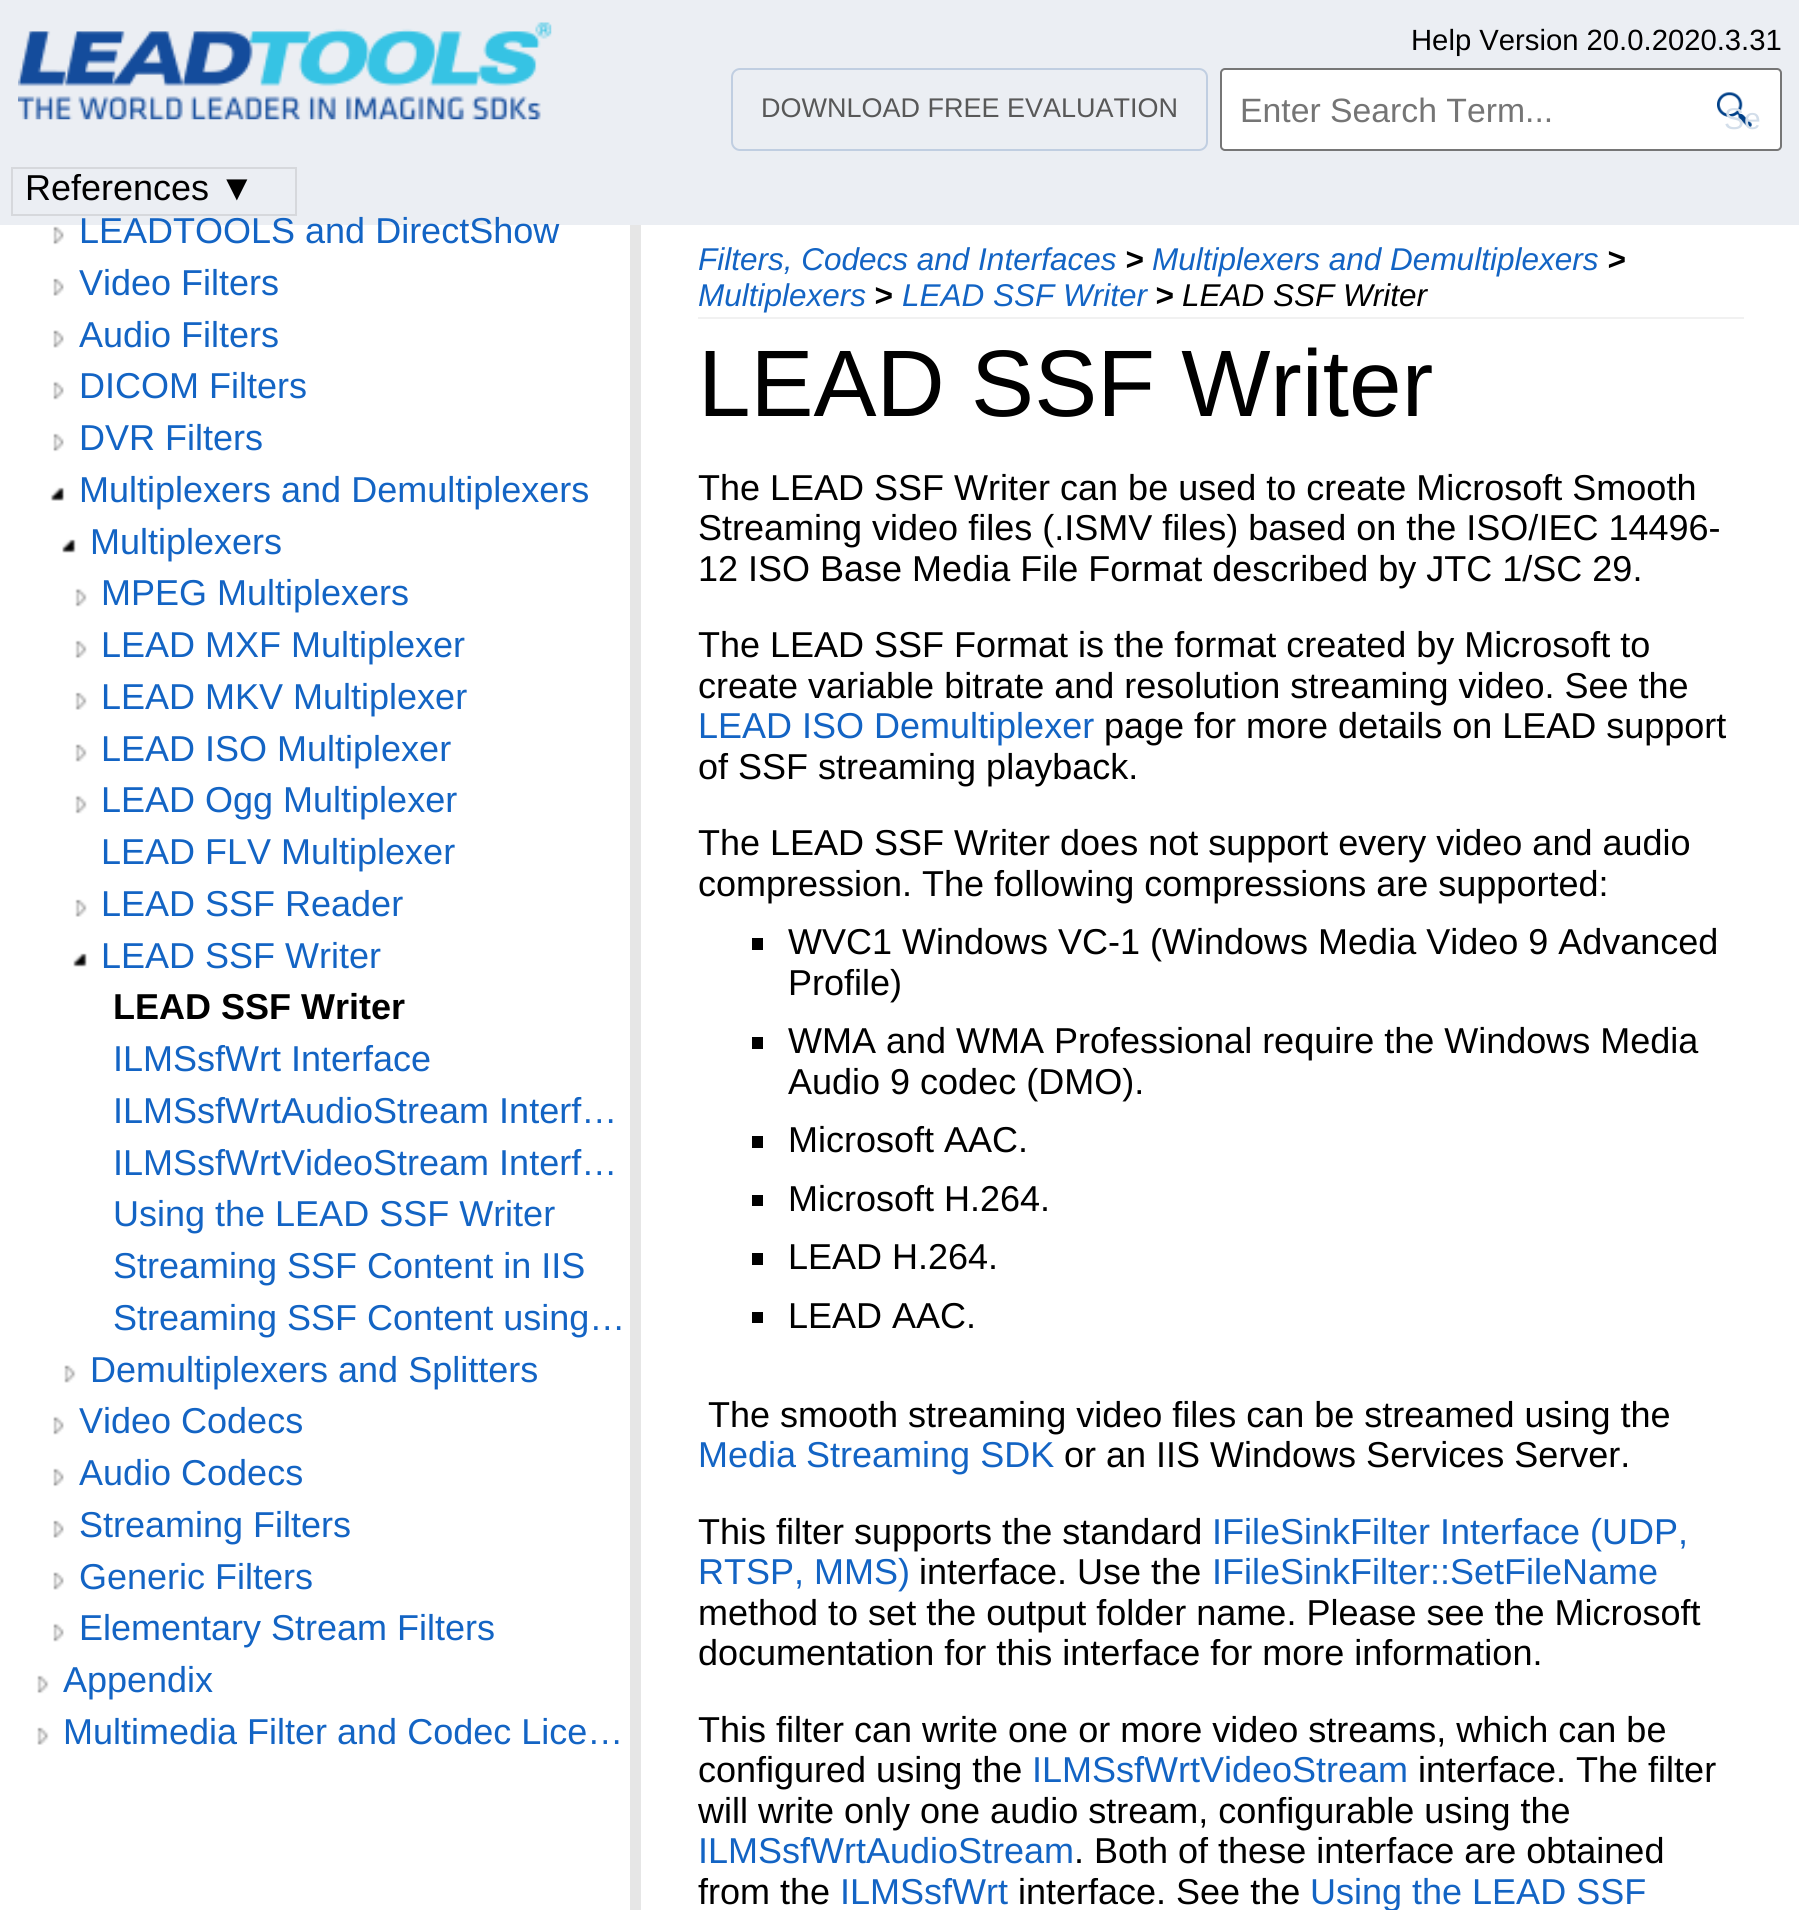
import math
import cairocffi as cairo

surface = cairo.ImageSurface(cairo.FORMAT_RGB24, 1799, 1910)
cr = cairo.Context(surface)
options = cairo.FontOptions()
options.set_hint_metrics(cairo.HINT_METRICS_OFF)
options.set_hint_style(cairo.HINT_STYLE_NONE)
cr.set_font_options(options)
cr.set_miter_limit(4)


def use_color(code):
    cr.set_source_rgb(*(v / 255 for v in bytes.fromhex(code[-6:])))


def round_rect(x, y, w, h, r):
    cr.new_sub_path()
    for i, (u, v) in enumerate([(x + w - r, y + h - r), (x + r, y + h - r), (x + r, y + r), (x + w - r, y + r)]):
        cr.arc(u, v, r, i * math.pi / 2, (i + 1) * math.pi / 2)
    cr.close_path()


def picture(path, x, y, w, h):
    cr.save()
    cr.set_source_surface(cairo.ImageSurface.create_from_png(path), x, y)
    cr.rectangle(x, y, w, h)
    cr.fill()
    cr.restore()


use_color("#ffffff")
cr.paint()
use_color("#ebeef3")
cr.rectangle(0, 0, 1799, 225)
cr.fill()
picture("img1.png", 18, 22, 534, 98)
cr.select_font_face("Liberation Sans")
cr.set_font_size(29.25)
use_color("#000000")
cr.move_to(1411, 50)
cr.show_text("Help Version 20.0.2020.3.31")
round_rect(732, 69, 475, 81, 8)
use_color("#c0cee1")
cr.stroke()
cr.set_font_size(27)
use_color("#585858")
cr.move_to(761, 117)
cr.show_text("DOWNLOAD FREE EVALUATION")
use_color("#ffffff")
round_rect(1221, 69, 560, 81, 4)
cr.fill_preserve()
use_color("#767676")
cr.stroke()
cr.set_font_size(33.75)
use_color("#757575")
cr.move_to(1240, 122)
cr.show_text("Enter Search Term...")
picture("img2.png", 1717, 92, 35, 36)
cr.set_font_size(30)
use_color("#d3deea")
cr.move_to(1724, 129)
cr.show_text("Se")
cr.rectangle(12, 168, 284, 47)
use_color("#d6d8dc")
cr.stroke()
cr.set_font_size(36)
use_color("#000000")
cr.move_to(25, 200)
cr.show_text("References ▼")
use_color("#e6e6e6")
cr.rectangle(630, 225, 11, 1685)
cr.fill()
picture("img3.png", 53, 226, 11, 19)
use_color("#1364c4")
cr.move_to(79, 243)
cr.show_text("LEADTOOLS and DirectShow")
picture("img4.png", 53, 278, 11, 18)
cr.move_to(79, 295)
cr.show_text("Video Filters")
picture("img5.png", 53, 330, 11, 18)
cr.move_to(79, 347)
cr.show_text("Audio Filters")
picture("img6.png", 53, 381, 11, 19)
cr.move_to(79, 398)
cr.show_text("DICOM Filters")
picture("img3.png", 53, 433, 11, 19)
cr.move_to(79, 450)
cr.show_text("DVR Filters")
picture("img7.png", 50, 487, 15, 14)
cr.move_to(79, 502)
cr.show_text("Multiplexers and Demultiplexers")
picture("img8.png", 62, 539, 14, 14)
cr.move_to(90, 554)
cr.show_text("Multiplexers")
picture("img9.png", 75, 588, 12, 19)
cr.move_to(101, 605)
cr.show_text("MPEG Multiplexers")
picture("img10.png", 75, 640, 12, 19)
cr.move_to(101, 657)
cr.show_text("LEAD MXF Multiplexer")
picture("img11.png", 75, 692, 12, 18)
cr.move_to(101, 709)
cr.show_text("LEAD MKV Multiplexer")
picture("img12.png", 75, 744, 12, 18)
cr.move_to(101, 761)
cr.show_text("LEAD ISO Multiplexer")
picture("img9.png", 75, 795, 12, 19)
cr.move_to(101, 812)
cr.show_text("LEAD Ogg Multiplexer")
cr.move_to(101, 864)
cr.show_text("LEAD FLV Multiplexer")
picture("img11.png", 75, 899, 12, 18)
cr.move_to(101, 916)
cr.show_text("LEAD SSF Reader")
picture("img13.png", 73, 953, 14, 14)
cr.move_to(101, 968)
cr.show_text("LEAD SSF Writer")
cr.select_font_face("Liberation Sans", cairo.FONT_SLANT_NORMAL, cairo.FONT_WEIGHT_BOLD)
use_color("#000000")
cr.move_to(113, 1019)
cr.show_text("LEAD SSF Writer")
cr.select_font_face("Liberation Sans")
use_color("#1364c4")
cr.move_to(113, 1071)
cr.show_text("ILMSsfWrt Interface")
cr.move_to(113, 1123)
cr.show_text("ILMSsfWrtAudioStream Interf…")
cr.move_to(113, 1175)
cr.show_text("ILMSsfWrtVideoStream Interf…")
cr.move_to(113, 1226)
cr.show_text("Using the LEAD SSF Writer")
cr.move_to(113, 1278)
cr.show_text("Streaming SSF Content in IIS")
cr.move_to(113, 1330)
cr.show_text("Streaming SSF Content using…")
picture("img14.png", 64, 1365, 12, 18)
cr.move_to(90, 1382)
cr.show_text("Demultiplexers and Splitters")
picture("img6.png", 53, 1416, 11, 19)
cr.move_to(79, 1433)
cr.show_text("Video Codecs")
picture("img3.png", 53, 1468, 11, 19)
cr.move_to(79, 1485)
cr.show_text("Audio Codecs")
picture("img4.png", 53, 1520, 11, 18)
cr.move_to(79, 1537)
cr.show_text("Streaming Filters")
picture("img5.png", 53, 1572, 11, 18)
cr.move_to(79, 1589)
cr.show_text("Generic Filters")
picture("img6.png", 53, 1623, 11, 19)
cr.move_to(79, 1640)
cr.show_text("Elementary Stream Filters")
picture("img15.png", 37, 1675, 12, 19)
cr.move_to(63, 1692)
cr.show_text("Appendix")
picture("img16.png", 37, 1727, 12, 18)
cr.move_to(63, 1744)
cr.show_text("Multimedia Filter and Codec Lice…")
use_color("#f1f1f1")
cr.rectangle(698, 317, 1046, 2)
cr.fill()
cr.select_font_face("Liberation Sans", cairo.FONT_SLANT_ITALIC)
cr.set_font_size(31.5)
use_color("#1364c4")
cr.move_to(698, 270)
cr.show_text("Filters, Codecs and Interfaces")
cr.select_font_face("Liberation Sans", cairo.FONT_SLANT_ITALIC, cairo.FONT_WEIGHT_BOLD)
use_color("#000000")
cr.move_to(1125, 270)
cr.show_text(">")
cr.select_font_face("Liberation Sans", cairo.FONT_SLANT_ITALIC)
use_color("#1364c4")
cr.move_to(1152, 270)
cr.show_text("Multiplexers and Demultiplexers")
cr.select_font_face("Liberation Sans", cairo.FONT_SLANT_ITALIC, cairo.FONT_WEIGHT_BOLD)
use_color("#000000")
cr.move_to(1607, 270)
cr.show_text(">")
cr.select_font_face("Liberation Sans", cairo.FONT_SLANT_ITALIC)
use_color("#1364c4")
cr.move_to(698, 306)
cr.show_text("Multiplexers")
cr.select_font_face("Liberation Sans", cairo.FONT_SLANT_ITALIC, cairo.FONT_WEIGHT_BOLD)
use_color("#000000")
cr.move_to(874, 306)
cr.show_text(">")
cr.select_font_face("Liberation Sans", cairo.FONT_SLANT_ITALIC)
use_color("#1364c4")
cr.move_to(902, 306)
cr.show_text("LEAD SSF Writer")
cr.select_font_face("Liberation Sans", cairo.FONT_SLANT_ITALIC, cairo.FONT_WEIGHT_BOLD)
use_color("#000000")
cr.move_to(1155, 306)
cr.show_text(">")
cr.select_font_face("Liberation Sans", cairo.FONT_SLANT_ITALIC)
cr.move_to(1182, 306)
cr.show_text("LEAD SSF Writer")
cr.select_font_face("Liberation Sans")
cr.set_font_size(94.5)
cr.move_to(698, 416)
cr.show_text("LEAD SSF Writer")
cr.set_font_size(36)
cr.move_to(698, 500)
cr.show_text("The LEAD SSF Writer can be used to create Microsoft Smooth")
cr.move_to(698, 540)
cr.show_text("Streaming video files (.ISMV files) based on the ISO/IEC 14496-")
cr.move_to(698, 581)
cr.show_text("12 ISO Base Media File Format described by JTC 1/SC 29.")
cr.move_to(698, 657)
cr.show_text("The LEAD SSF Format is the format created by Microsoft to")
cr.move_to(698, 698)
cr.show_text("create variable bitrate and resolution streaming video. See the")
use_color("#1364c4")
cr.move_to(698, 738)
cr.show_text("LEAD ISO Demultiplexer")
use_color("#000000")
cr.move_to(1104, 738)
cr.show_text("page for more details on LEAD support")
cr.move_to(698, 779)
cr.show_text("of SSF streaming playback.")
cr.move_to(698, 855)
cr.show_text("The LEAD SSF Writer does not support every video and audio")
cr.move_to(698, 896)
cr.show_text("compression. The following compressions are supported:")
cr.rectangle(752, 938, 11, 12)
cr.fill()
cr.move_to(788, 954)
cr.show_text("WVC1 Windows VC-1 (Windows Media Video 9 Advanced")
cr.move_to(788, 995)
cr.show_text("Profile)")
cr.rectangle(752, 1037, 11, 12)
cr.fill()
cr.move_to(788, 1053)
cr.show_text("WMA and WMA Professional require the Windows Media")
cr.move_to(788, 1094)
cr.show_text("Audio 9 codec (DMO).")
cr.rectangle(752, 1136, 11, 12)
cr.fill()
cr.move_to(788, 1152)
cr.show_text("Microsoft AAC.")
cr.rectangle(752, 1195, 11, 11)
cr.fill()
cr.move_to(788, 1211)
cr.show_text("Microsoft H.264.")
cr.rectangle(752, 1253, 11, 12)
cr.fill()
cr.move_to(788, 1269)
cr.show_text("LEAD H.264.")
cr.rectangle(752, 1312, 11, 11)
cr.fill()
cr.move_to(788, 1328)
cr.show_text("LEAD AAC.")
cr.move_to(708, 1427)
cr.show_text("The smooth streaming video files can be streamed using the")
use_color("#1364c4")
cr.move_to(698, 1467)
cr.show_text("Media Streaming SDK")
use_color("#000000")
cr.move_to(1064, 1467)
cr.show_text("or an IIS Windows Services Server.")
cr.move_to(698, 1544)
cr.show_text("This filter supports the standard")
use_color("#1364c4")
cr.move_to(1212, 1544)
cr.show_text("IFileSinkFilter Interface (UDP,")
cr.move_to(698, 1584)
cr.show_text("RTSP, MMS)")
use_color("#000000")
cr.move_to(919, 1584)
cr.show_text("interface. Use the")
use_color("#1364c4")
cr.move_to(1212, 1584)
cr.show_text("IFileSinkFilter::SetFileName")
use_color("#000000")
cr.move_to(698, 1625)
cr.show_text("method to set the output folder name. Please see the Microsoft")
cr.move_to(698, 1665)
cr.show_text("documentation for this interface for more information.")
cr.move_to(698, 1742)
cr.show_text("This filter can write one or more video streams, which can be")
cr.move_to(698, 1782)
cr.show_text("configured using the")
use_color("#1364c4")
cr.move_to(1032, 1782)
cr.show_text("ILMSsfWrtVideoStream")
use_color("#000000")
cr.move_to(1418, 1782)
cr.show_text("interface. The filter")
cr.move_to(698, 1823)
cr.show_text("will write only one audio stream, configurable using the")
use_color("#1364c4")
cr.move_to(698, 1863)
cr.show_text("ILMSsfWrtAudioStream")
use_color("#000000")
cr.move_to(1074, 1863)
cr.show_text(". Both of these interface are obtained")
cr.move_to(698, 1904)
cr.show_text("from the")
use_color("#1364c4")
cr.move_to(840, 1904)
cr.show_text("ILMSsfWrt")
use_color("#000000")
cr.move_to(1018, 1904)
cr.show_text("interface. See the")
use_color("#1364c4")
cr.move_to(1310, 1904)
cr.show_text("Using the LEAD SSF")
surface.write_to_png("result.png")
